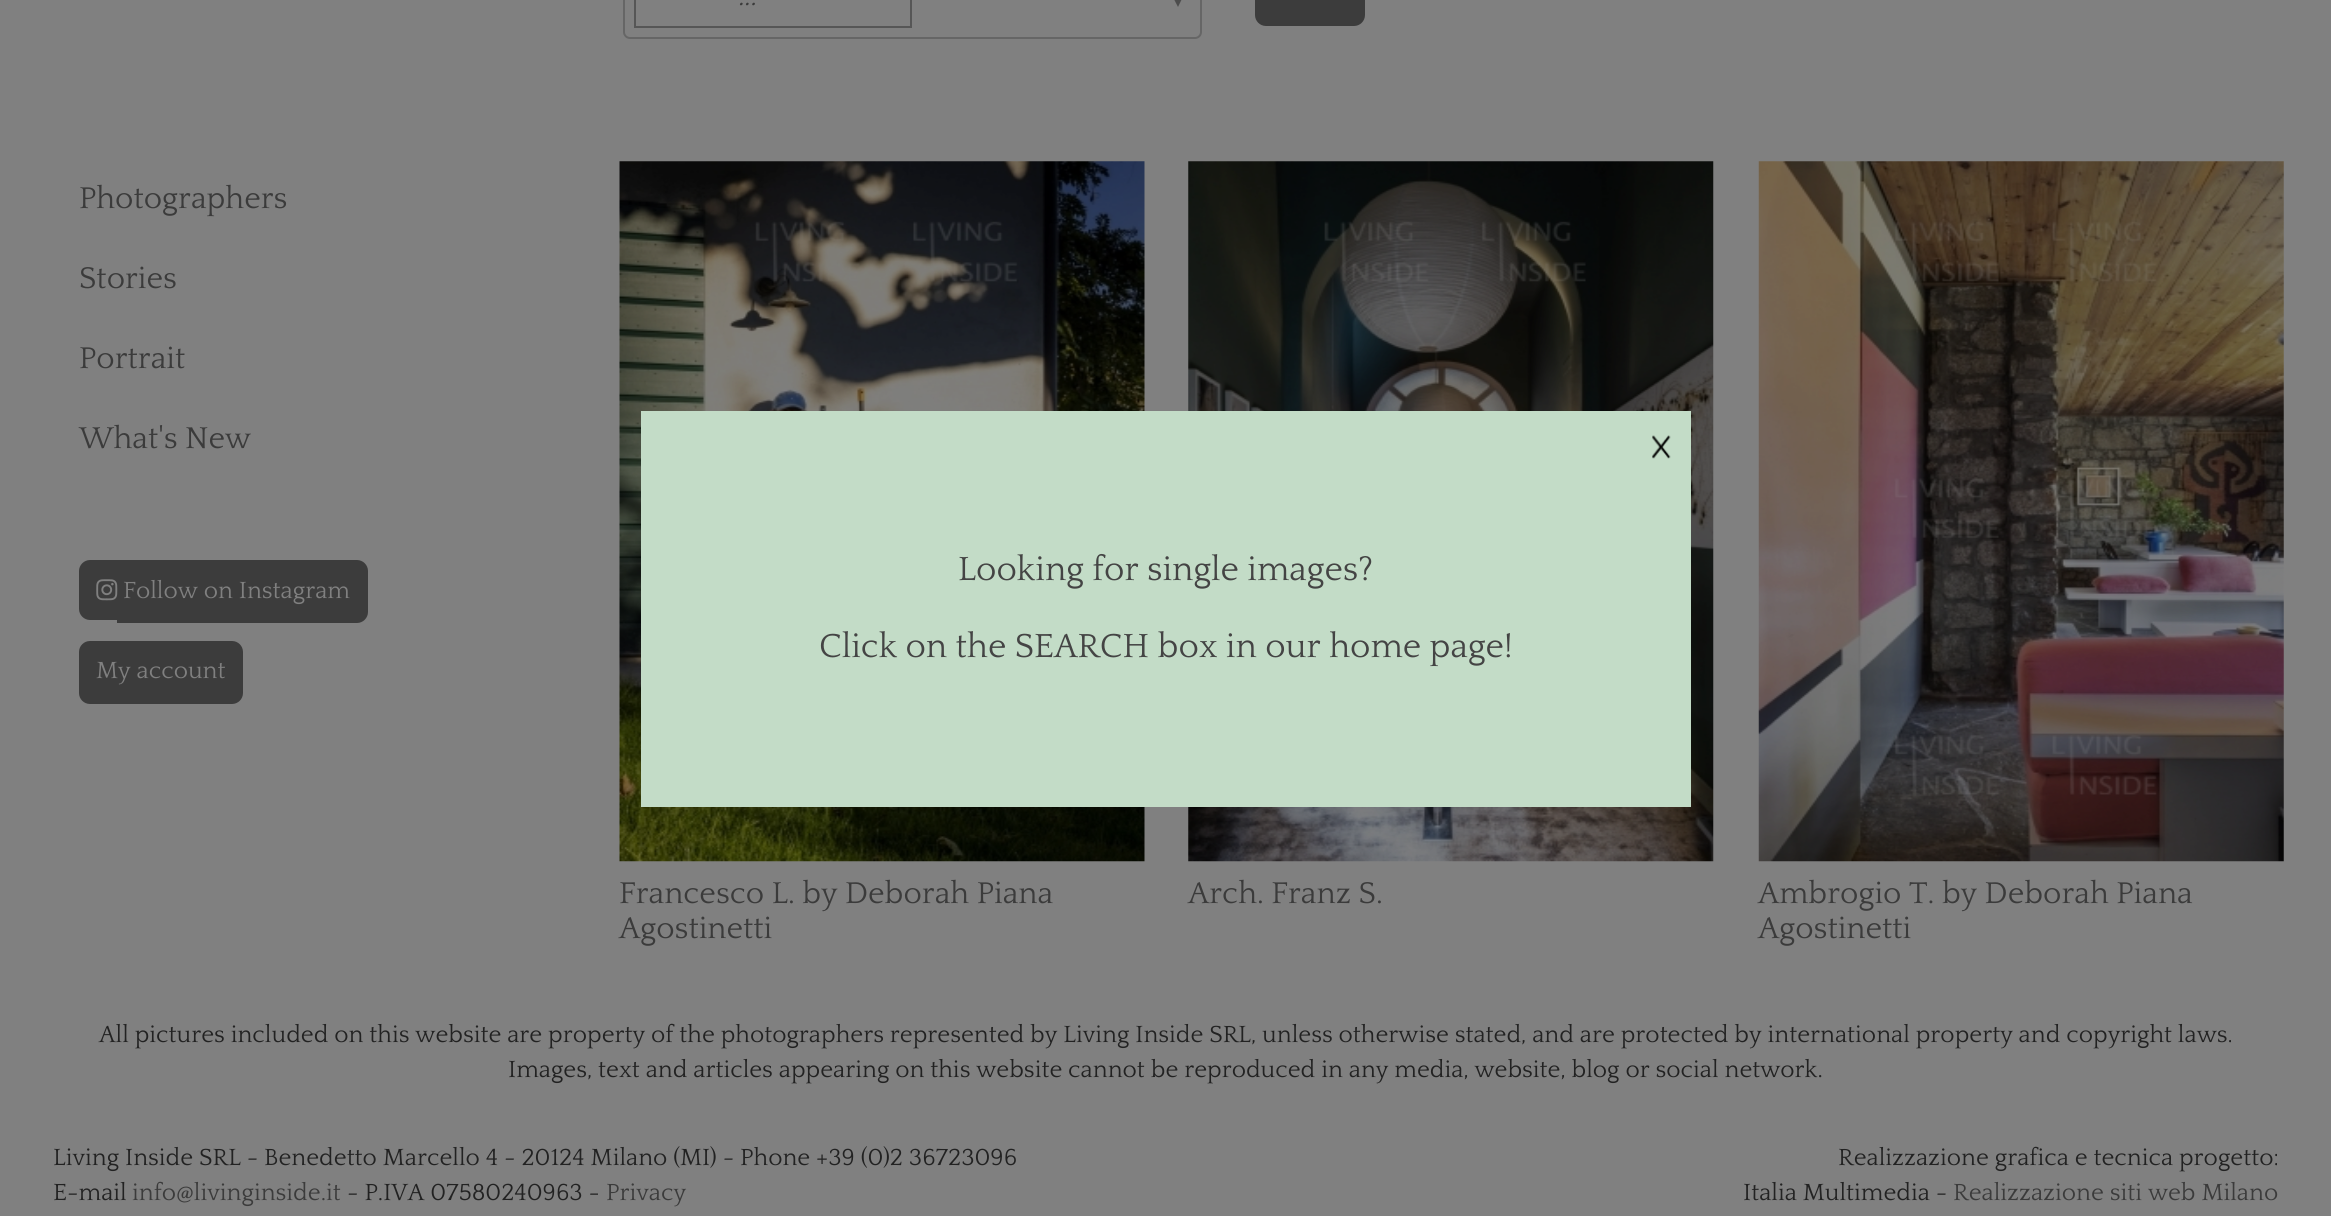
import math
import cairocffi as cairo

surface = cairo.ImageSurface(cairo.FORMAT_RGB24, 2331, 1216)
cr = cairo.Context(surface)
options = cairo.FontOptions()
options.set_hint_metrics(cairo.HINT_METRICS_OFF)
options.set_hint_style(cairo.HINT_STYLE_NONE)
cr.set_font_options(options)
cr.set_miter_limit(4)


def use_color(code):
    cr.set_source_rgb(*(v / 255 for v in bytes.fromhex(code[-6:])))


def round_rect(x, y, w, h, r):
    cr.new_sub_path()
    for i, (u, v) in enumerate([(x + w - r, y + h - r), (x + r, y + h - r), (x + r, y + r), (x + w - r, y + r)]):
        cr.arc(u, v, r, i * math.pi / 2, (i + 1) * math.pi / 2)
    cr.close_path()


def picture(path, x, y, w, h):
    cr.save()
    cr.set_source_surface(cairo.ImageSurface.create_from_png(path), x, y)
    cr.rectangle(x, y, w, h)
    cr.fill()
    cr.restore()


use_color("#808080")
cr.paint()
round_rect(624, -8, 577, 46, 6)
use_color("#666666")
cr.stroke()
cr.rectangle(635, -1, 276, 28)
use_color("#565656")
cr.stroke()
cr.select_font_face("Quattrocento", cairo.FONT_SLANT_ITALIC)
cr.set_font_size(28)
use_color("#3b3b3b")
cr.move_to(738, 5)
cr.show_text("...")
use_color("#4d4d4d")
cr.new_path()
cr.move_to(1169, -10.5)
cr.line_to(1186.5, -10.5)
cr.line_to(1178, 7)
cr.close_path()
cr.fill()
use_color("#3c3c3c")
round_rect(1255, -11, 110, 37, 11)
cr.fill()
cr.select_font_face("Quattrocento")
cr.set_font_size(31.5)
use_color("#3b3b3b")
cr.move_to(79, 208)
cr.show_text("Photographers")
cr.move_to(79, 288)
cr.show_text("Stories")
cr.move_to(79, 368)
cr.show_text("Portrait")
cr.move_to(79, 448)
cr.show_text("What's New")
use_color("#3c3c3c")
cr.new_path()
cr.move_to(90, 560)
cr.line_to(117, 560)
cr.line_to(117, 620)
cr.line_to(90, 620)
cr.curve_to(84, 620, 79, 615, 79, 609)
cr.line_to(79, 571)
cr.curve_to(79, 565, 84, 560, 90, 560)
cr.close_path()
cr.fill()
cr.new_path()
cr.move_to(117, 560)
cr.line_to(357, 560)
cr.curve_to(363, 560, 368, 565, 368, 571)
cr.line_to(368, 612)
cr.curve_to(368, 618, 363, 623, 357, 623)
cr.line_to(117, 623)
cr.close_path()
cr.fill()
picture("img1.png", 96, 579, 22, 22)
cr.set_font_size(24.5)
use_color("#808080")
cr.move_to(123, 598)
cr.show_text("Follow on Instagram")
use_color("#3c3c3c")
round_rect(79, 641, 164, 63, 11)
cr.fill()
use_color("#808080")
cr.move_to(96, 678)
cr.show_text("My account")
picture("img3.png", 619, 161, 526, 701)
picture("img4.png", 1188, 161, 526, 701)
use_color("#c3dcc7")
cr.rectangle(641, 411, 1050, 396)
cr.fill()
picture("img2.png", 1652, 435, 19, 24)
cr.set_font_size(35)
use_color("#444444")
cr.move_to(958, 580)
cr.show_text("Looking for single images?")
cr.move_to(819, 657)
cr.show_text("Click on the SEARCH box in our home page!")
cr.set_font_size(31.5)
use_color("#3b3b3b")
cr.move_to(619, 903)
cr.show_text("Francesco L. by Deborah Piana")
cr.move_to(619, 938)
cr.show_text("Agostinetti")
cr.move_to(1188, 903)
cr.show_text("Arch. Franz S.")
picture("img5.png", 1758, 161, 526, 701)
cr.move_to(1758, 903)
cr.show_text("Ambrogio T. by Deborah Piana")
cr.move_to(1758, 938)
cr.show_text("Agostinetti")
cr.set_font_size(24.5)
use_color("#222222")
cr.move_to(99, 1042)
cr.show_text("All pictures included on this website are property of the photographers represented by Living Inside SRL, unless otherwise stated, and are protected by international property and copyright laws.")
cr.move_to(508, 1077)
cr.show_text("Images, text and articles appearing on this website cannot be reproduced in any media, website, blog or social network.")
cr.move_to(53, 1165)
cr.show_text("Living Inside SRL - Benedetto Marcello 4 - 20124 Milano (MI) - Phone +39 (0)2 36723096")
cr.move_to(53, 1200)
cr.show_text("E-mail")
use_color("#3b3b3b")
cr.move_to(132, 1200)
cr.show_text("info@livinginside.it")
use_color("#222222")
cr.move_to(347, 1200)
cr.show_text("- P.IVA 07580240963 -")
use_color("#3b3b3b")
cr.move_to(606, 1200)
cr.show_text("Privacy")
use_color("#222222")
cr.move_to(1838, 1165)
cr.show_text("Realizzazione grafica e tecnica progetto:")
cr.move_to(1743, 1200)
cr.show_text("Italia Multimedia -")
use_color("#3b3b3b")
cr.move_to(1953, 1200)
cr.show_text("Realizzazione siti web Milano")
surface.write_to_png("result.png")
